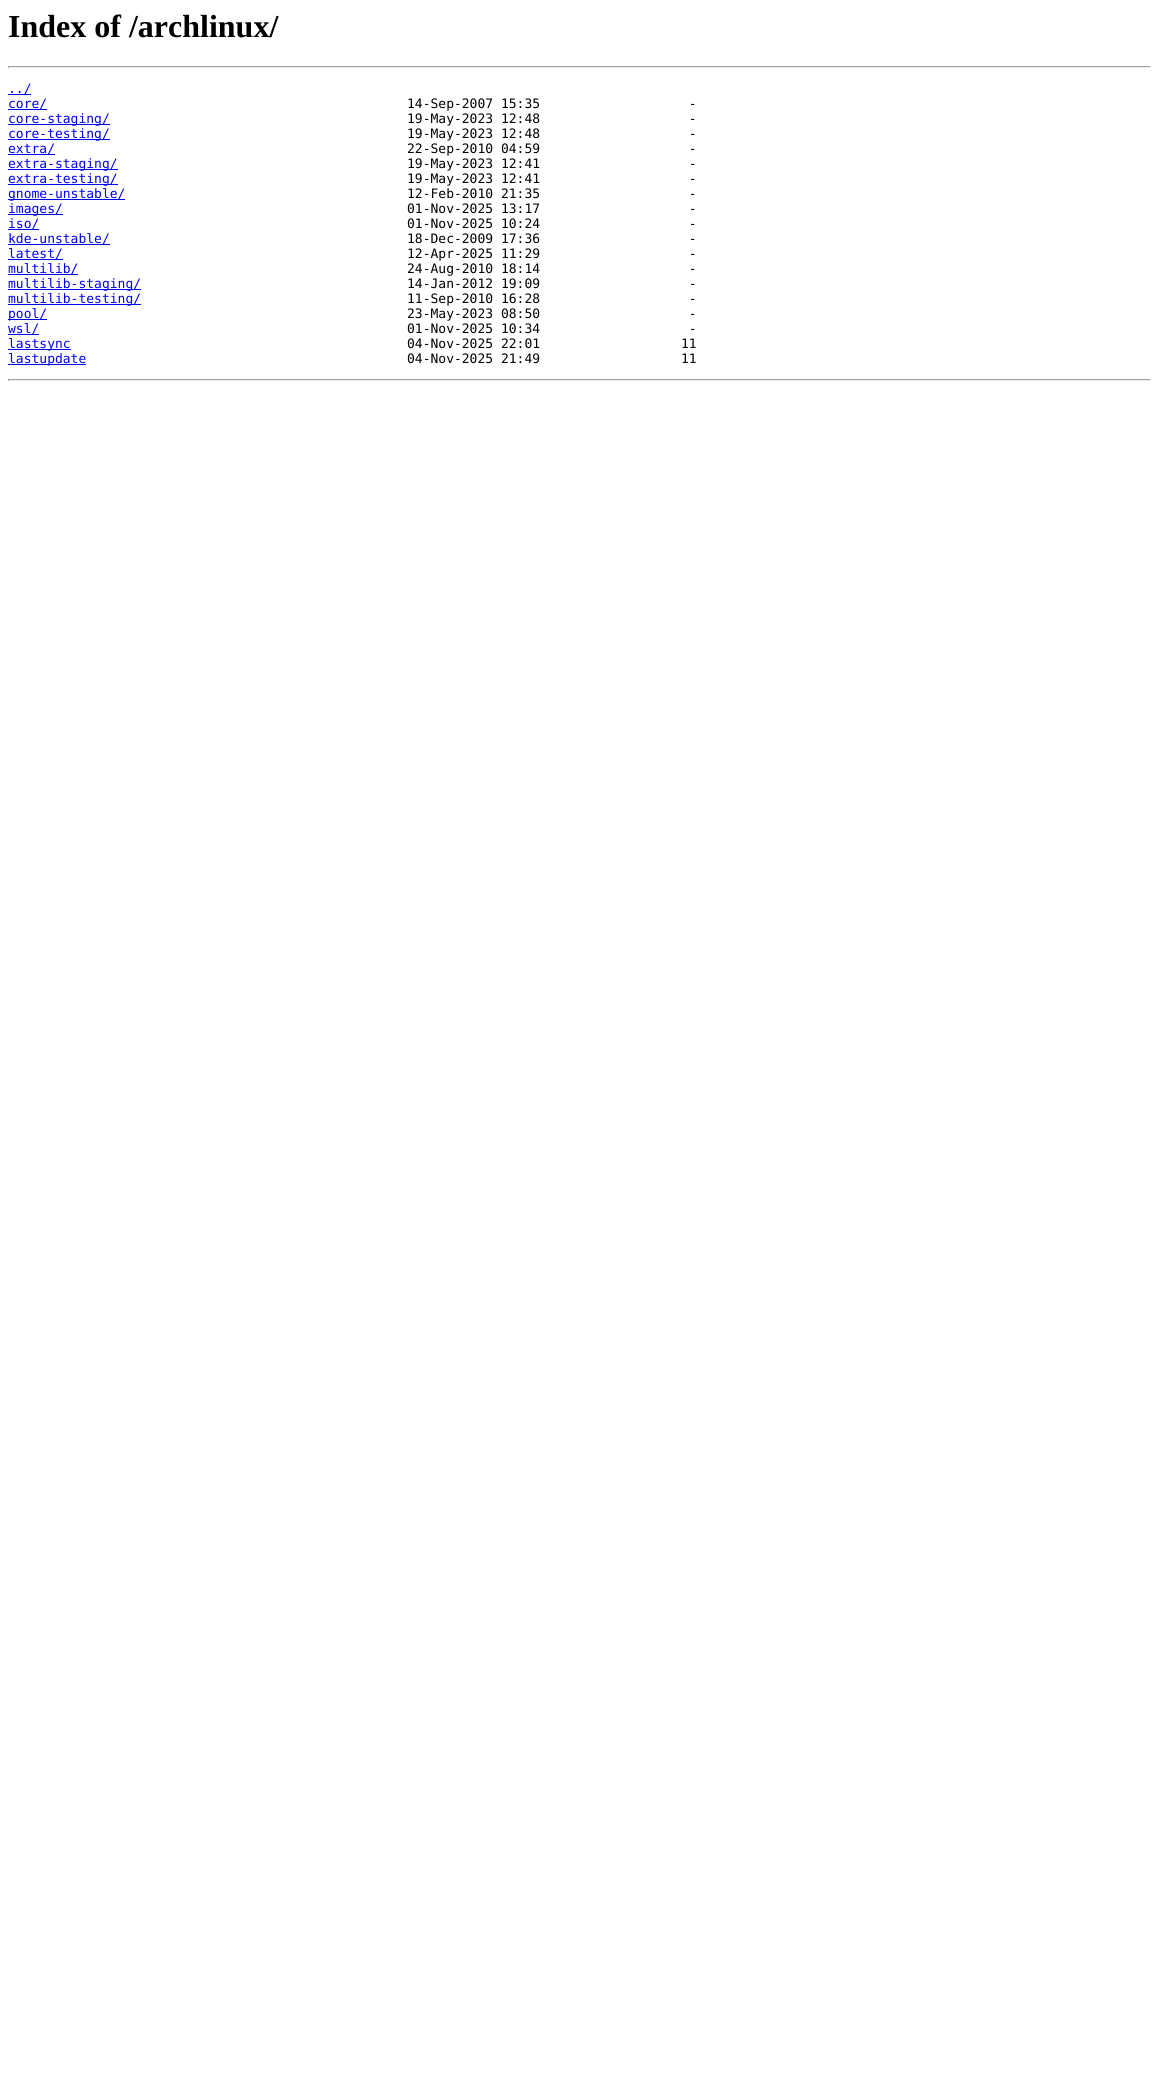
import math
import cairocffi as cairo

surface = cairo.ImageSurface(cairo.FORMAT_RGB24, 1159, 2082)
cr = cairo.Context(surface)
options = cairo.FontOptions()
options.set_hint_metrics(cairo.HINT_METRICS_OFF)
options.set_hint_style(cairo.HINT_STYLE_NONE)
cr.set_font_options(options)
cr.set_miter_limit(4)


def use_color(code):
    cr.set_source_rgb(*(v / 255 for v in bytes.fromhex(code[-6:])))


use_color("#ffffff")
cr.paint()
cr.select_font_face("Liberation Serif", cairo.FONT_SLANT_NORMAL, cairo.FONT_WEIGHT_BOLD)
cr.set_font_size(32)
use_color("#000000")
cr.move_to(8, 37)
cr.show_text("Index of /archlinux/")
use_color("#9f9f9f")
cr.rectangle(8, 66, 1143, 1)
cr.fill()
use_color("#eeeeee")
cr.rectangle(1150, 66, 1, 2)
cr.fill()
cr.rectangle(8, 67, 1143, 1)
cr.fill()
use_color("#9f9f9f")
cr.rectangle(8, 66, 1, 2)
cr.fill()
use_color("#0000ee")
cr.rectangle(8, 94, 23, 1)
cr.fill()
cr.select_font_face("DejaVu Sans Mono")
cr.set_font_size(13)
cr.move_to(8, 93)
cr.show_text("../")
cr.rectangle(8, 109, 39, 1)
cr.fill()
cr.move_to(8, 108)
cr.show_text("core/")
use_color("#000000")
cr.move_to(407, 108)
cr.show_text("14-Sep-2007 15:35                   -")
use_color("#0000ee")
cr.rectangle(8, 124, 102, 1)
cr.fill()
cr.move_to(8, 123)
cr.show_text("core-staging/")
use_color("#000000")
cr.move_to(407, 123)
cr.show_text("19-May-2023 12:48                   -")
use_color("#0000ee")
cr.rectangle(8, 139, 102, 1)
cr.fill()
cr.move_to(8, 138)
cr.show_text("core-testing/")
use_color("#000000")
cr.move_to(407, 138)
cr.show_text("19-May-2023 12:48                   -")
use_color("#0000ee")
cr.rectangle(8, 154, 47, 1)
cr.fill()
cr.move_to(8, 153)
cr.show_text("extra/")
use_color("#000000")
cr.move_to(407, 153)
cr.show_text("22-Sep-2010 04:59                   -")
use_color("#0000ee")
cr.rectangle(8, 169, 110, 1)
cr.fill()
cr.move_to(8, 168)
cr.show_text("extra-staging/")
use_color("#000000")
cr.move_to(407, 168)
cr.show_text("19-May-2023 12:41                   -")
use_color("#0000ee")
cr.rectangle(8, 184, 110, 1)
cr.fill()
cr.move_to(8, 183)
cr.show_text("extra-testing/")
use_color("#000000")
cr.move_to(407, 183)
cr.show_text("19-May-2023 12:41                   -")
use_color("#0000ee")
cr.rectangle(8, 199, 117, 1)
cr.fill()
cr.move_to(8, 198)
cr.show_text("gnome-unstable/")
use_color("#000000")
cr.move_to(407, 198)
cr.show_text("12-Feb-2010 21:35                   -")
use_color("#0000ee")
cr.rectangle(8, 214, 55, 1)
cr.fill()
cr.move_to(8, 213)
cr.show_text("images/")
use_color("#000000")
cr.move_to(407, 213)
cr.show_text("01-Nov-2025 13:17                   -")
use_color("#0000ee")
cr.rectangle(8, 229, 31, 1)
cr.fill()
cr.move_to(8, 228)
cr.show_text("iso/")
use_color("#000000")
cr.move_to(407, 228)
cr.show_text("01-Nov-2025 10:24                   -")
use_color("#0000ee")
cr.rectangle(8, 244, 102, 1)
cr.fill()
cr.move_to(8, 243)
cr.show_text("kde-unstable/")
use_color("#000000")
cr.move_to(407, 243)
cr.show_text("18-Dec-2009 17:36                   -")
use_color("#0000ee")
cr.rectangle(8, 259, 55, 1)
cr.fill()
cr.move_to(8, 258)
cr.show_text("latest/")
use_color("#000000")
cr.move_to(407, 258)
cr.show_text("12-Apr-2025 11:29                   -")
use_color("#0000ee")
cr.rectangle(8, 274, 70, 1)
cr.fill()
cr.move_to(8, 273)
cr.show_text("multilib/")
use_color("#000000")
cr.move_to(407, 273)
cr.show_text("24-Aug-2010 18:14                   -")
use_color("#0000ee")
cr.rectangle(8, 289, 133, 1)
cr.fill()
cr.move_to(8, 288)
cr.show_text("multilib-staging/")
use_color("#000000")
cr.move_to(407, 288)
cr.show_text("14-Jan-2012 19:09                   -")
use_color("#0000ee")
cr.rectangle(8, 304, 133, 1)
cr.fill()
cr.move_to(8, 303)
cr.show_text("multilib-testing/")
use_color("#000000")
cr.move_to(407, 303)
cr.show_text("11-Sep-2010 16:28                   -")
use_color("#0000ee")
cr.rectangle(8, 319, 39, 1)
cr.fill()
cr.move_to(8, 318)
cr.show_text("pool/")
use_color("#000000")
cr.move_to(407, 318)
cr.show_text("23-May-2023 08:50                   -")
use_color("#0000ee")
cr.rectangle(8, 334, 31, 1)
cr.fill()
cr.move_to(8, 333)
cr.show_text("wsl/")
use_color("#000000")
cr.move_to(407, 333)
cr.show_text("01-Nov-2025 10:34                   -")
use_color("#0000ee")
cr.rectangle(8, 349, 63, 1)
cr.fill()
cr.move_to(8, 348)
cr.show_text("lastsync")
use_color("#000000")
cr.move_to(407, 348)
cr.show_text("04-Nov-2025 22:01                  11")
use_color("#0000ee")
cr.rectangle(8, 364, 78, 1)
cr.fill()
cr.move_to(8, 363)
cr.show_text("lastupdate")
use_color("#000000")
cr.move_to(407, 363)
cr.show_text("04-Nov-2025 21:49                  11")
use_color("#9f9f9f")
cr.rectangle(8, 379, 1143, 1)
cr.fill()
use_color("#eeeeee")
cr.rectangle(1150, 379, 1, 2)
cr.fill()
cr.rectangle(8, 380, 1143, 1)
cr.fill()
use_color("#9f9f9f")
cr.rectangle(8, 379, 1, 2)
cr.fill()
surface.write_to_png("result.png")
